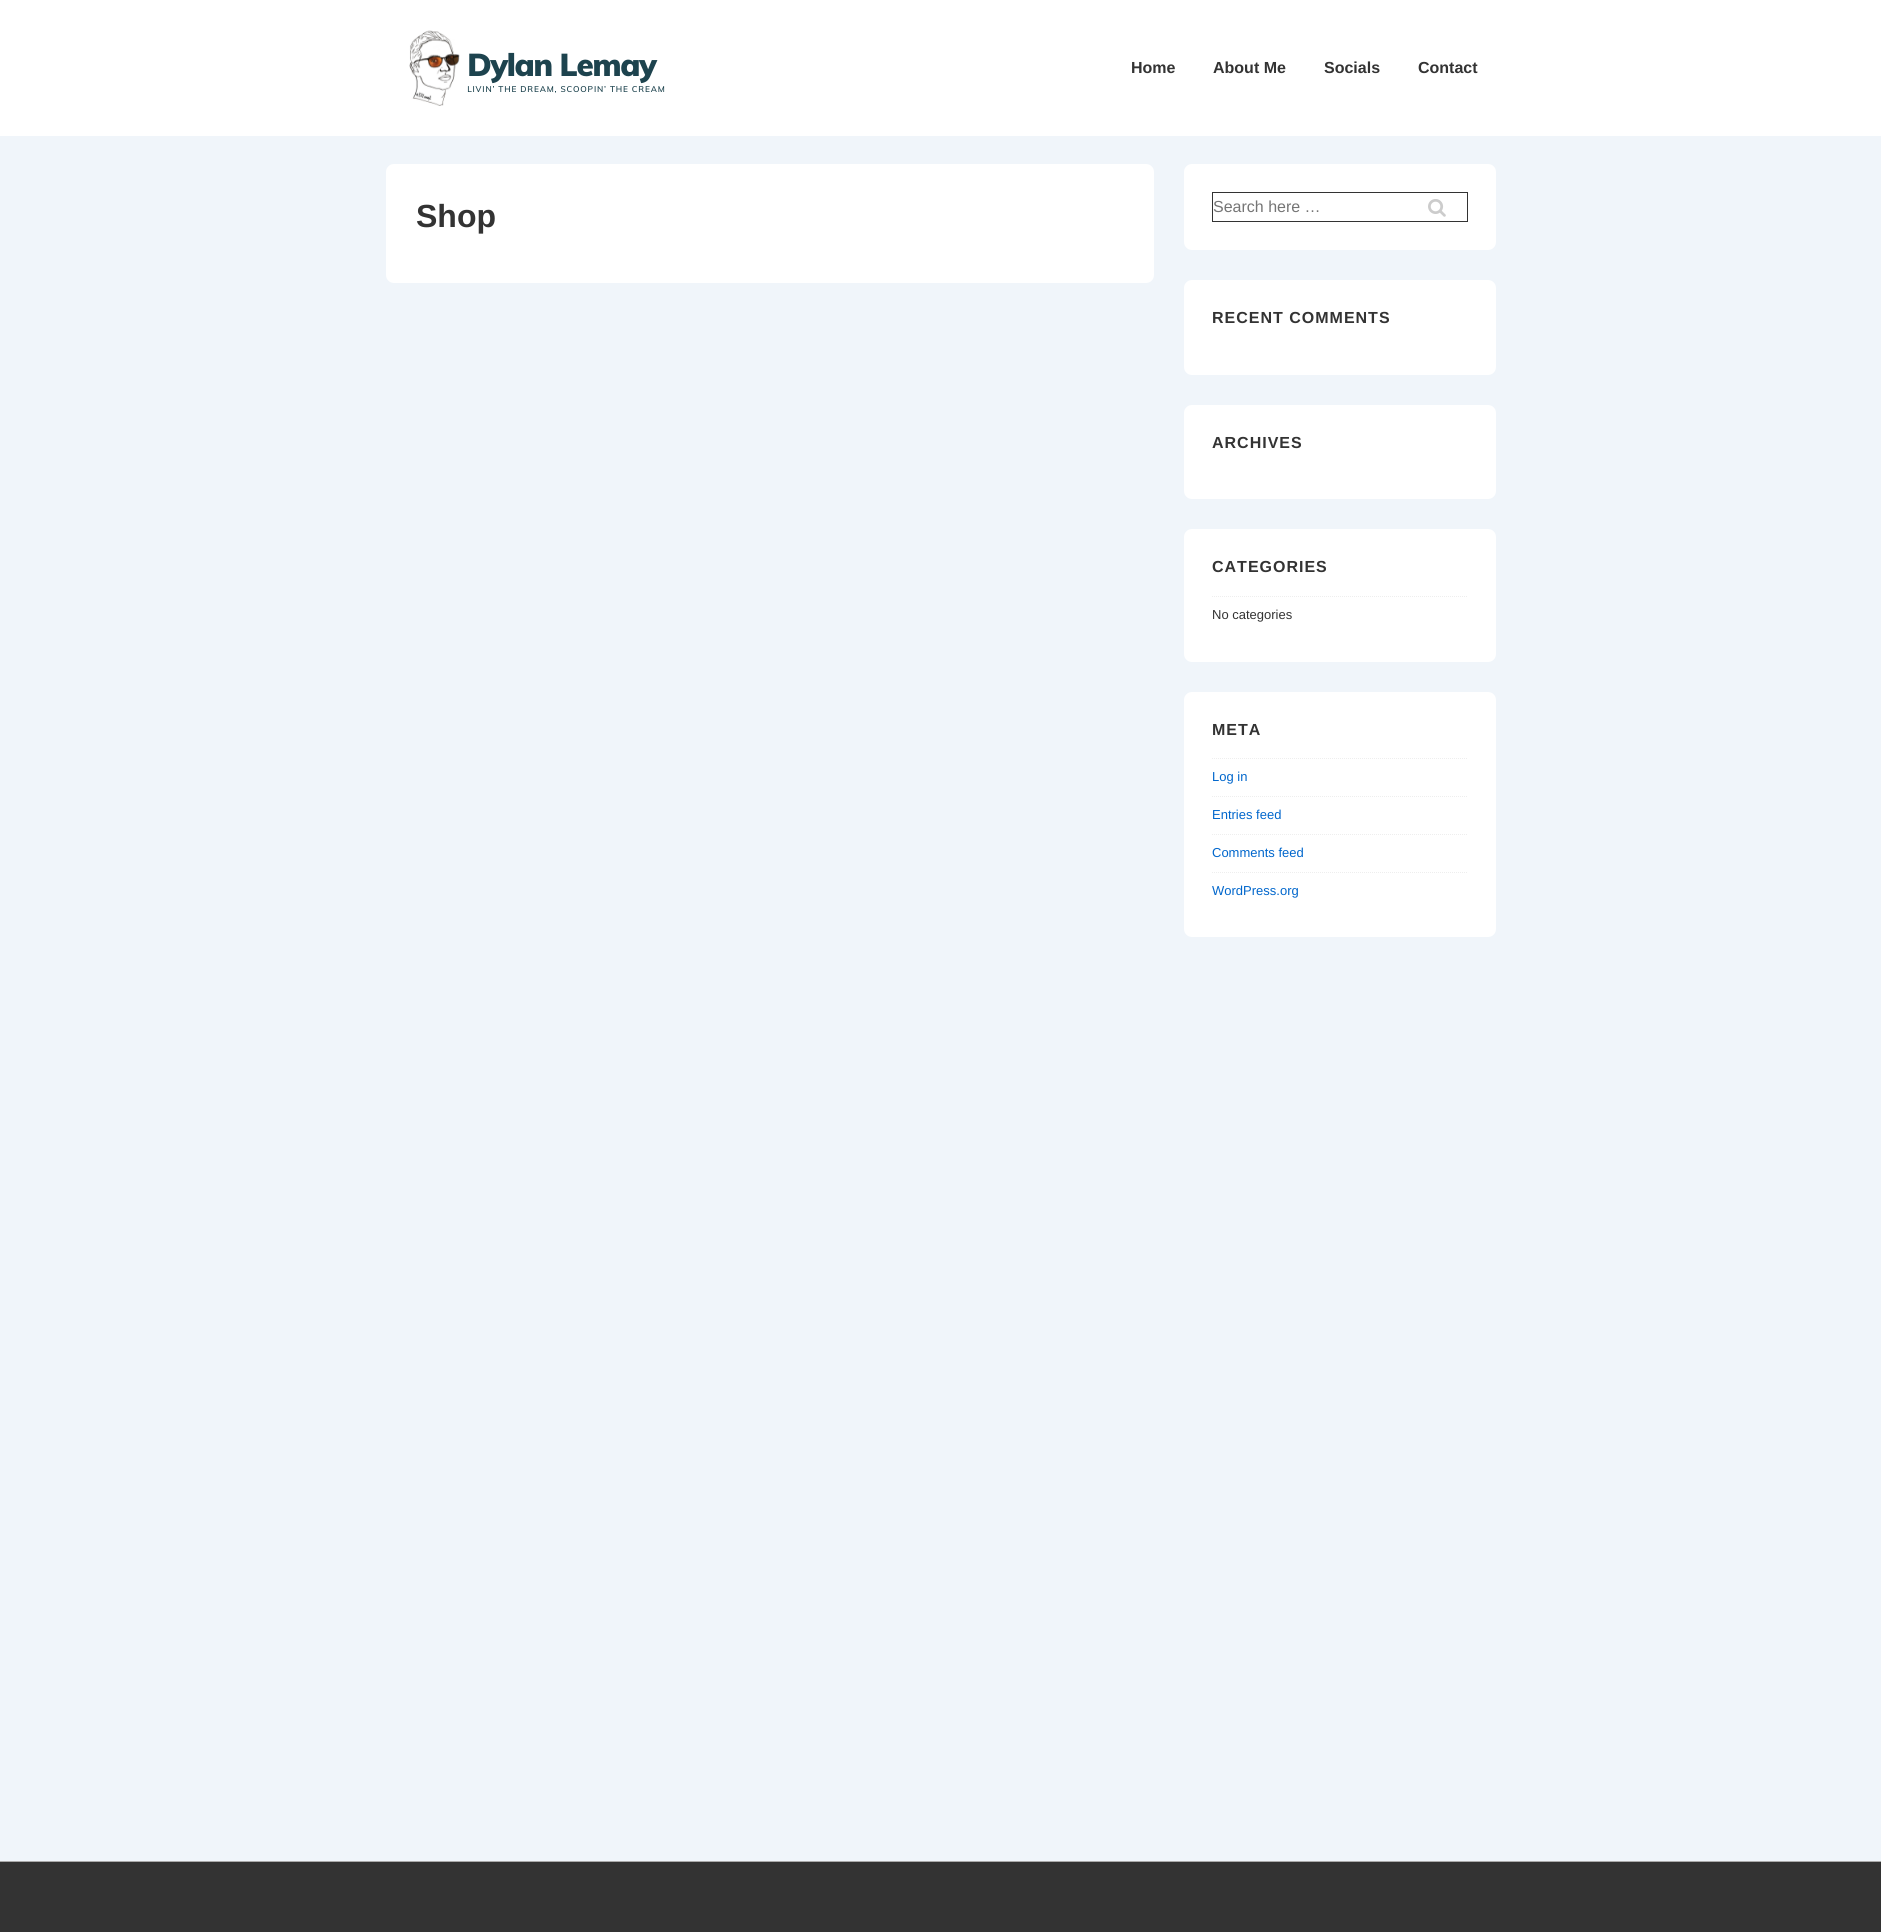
import math
import cairocffi as cairo

surface = cairo.ImageSurface(cairo.FORMAT_RGB24, 1881, 1932)
cr = cairo.Context(surface)
options = cairo.FontOptions()
options.set_hint_metrics(cairo.HINT_METRICS_OFF)
options.set_hint_style(cairo.HINT_STYLE_NONE)
cr.set_font_options(options)
cr.set_miter_limit(4)


def use_color(code):
    cr.set_source_rgb(*(v / 255 for v in bytes.fromhex(code[-6:])))


def spaced_text(x, y, s, letter, word):
    cr.move_to(x, y)
    for ch in s:
        cr.show_text(ch)
        cr.rel_move_to(letter + word * (ch == ' '), 0)


def round_rect(x, y, w, h, r):
    cr.new_sub_path()
    for i, (u, v) in enumerate([(x + w - r, y + h - r), (x + r, y + h - r), (x + r, y + r), (x + w - r, y + r)]):
        cr.arc(u, v, r, i * math.pi / 2, (i + 1) * math.pi / 2)
    cr.close_path()


def picture(path, x, y, w, h):
    cr.save()
    cr.set_source_surface(cairo.ImageSurface.create_from_png(path), x, y)
    cr.rectangle(x, y, w, h)
    cr.fill()
    cr.restore()


use_color("#f0f5fa")
cr.paint()
use_color("#ffffff")
cr.rectangle(0, 0, 1881, 136)
cr.fill()
picture("img1.png", 409, 30, 256, 76)
cr.select_font_face("Liberation Sans", cairo.FONT_SLANT_NORMAL, cairo.FONT_WEIGHT_BOLD)
cr.set_font_size(16)
use_color("#333333")
cr.move_to(1131, 73)
cr.show_text("Home")
cr.move_to(1213, 73)
cr.show_text("About Me")
cr.move_to(1324, 73)
cr.show_text("Socials")
cr.move_to(1418, 73)
cr.show_text("Contact")
use_color("#ffffff")
round_rect(386, 164, 768, 119, 8)
cr.fill()
cr.set_font_size(32)
use_color("#333333")
cr.move_to(416, 227)
cr.show_text("Shop")
use_color("#ffffff")
round_rect(1184, 164, 312, 86, 8)
cr.fill()
cr.rectangle(1212.5, 192.5, 255, 29)
use_color("#333333")
cr.set_line_width(1)
cr.stroke()
cr.select_font_face("Liberation Sans")
cr.set_font_size(16)
use_color("#757575")
cr.move_to(1213, 212)
cr.show_text("Search here …")
picture("img2.png", 1428, 199, 18, 18)
use_color("#ffffff")
round_rect(1184, 280, 312, 95, 8)
cr.fill()
cr.select_font_face("Liberation Sans", cairo.FONT_SLANT_NORMAL, cairo.FONT_WEIGHT_BOLD)
use_color("#333333")
spaced_text(1212, 323, "RECENT COMMENTS", 1, 0)
use_color("#ffffff")
round_rect(1184, 405, 312, 94, 8)
cr.fill()
use_color("#333333")
spaced_text(1212, 448, "ARCHIVES", 1, 0)
use_color("#ffffff")
round_rect(1184, 529, 312, 133, 8)
cr.fill()
use_color("#333333")
spaced_text(1212, 572, "CATEGORIES", 1, 0)
cr.new_path()
cr.move_to(1212, 596.5)
cr.line_to(1468, 596.5)
use_color("#eeeeee")
cr.set_dash([1, 1])
cr.stroke()
cr.select_font_face("Liberation Sans")
cr.set_font_size(13)
use_color("#333333")
cr.move_to(1212, 619)
cr.show_text("No categories")
use_color("#ffffff")
round_rect(1184, 692, 312, 245, 8)
cr.fill()
cr.select_font_face("Liberation Sans", cairo.FONT_SLANT_NORMAL, cairo.FONT_WEIGHT_BOLD)
cr.set_font_size(16)
use_color("#333333")
spaced_text(1212, 735, "META", 1, 0)
cr.new_path()
cr.move_to(1212, 758.5)
cr.line_to(1468, 758.5)
use_color("#eeeeee")
cr.stroke()
cr.select_font_face("Liberation Sans")
cr.set_font_size(13)
use_color("#0066cc")
cr.move_to(1212, 781)
cr.show_text("Log in")
cr.new_path()
cr.move_to(1212, 796.5)
cr.line_to(1468, 796.5)
use_color("#eeeeee")
cr.stroke()
use_color("#0066cc")
cr.move_to(1212, 819)
cr.show_text("Entries feed")
cr.new_path()
cr.move_to(1212, 834.5)
cr.line_to(1468, 834.5)
use_color("#eeeeee")
cr.stroke()
use_color("#0066cc")
cr.move_to(1212, 857)
cr.show_text("Comments feed")
cr.new_path()
cr.move_to(1212, 872.5)
cr.line_to(1468, 872.5)
use_color("#eeeeee")
cr.stroke()
use_color("#0066cc")
cr.move_to(1212, 895)
cr.show_text("WordPress.org")
use_color("#333333")
cr.rectangle(0, 1862, 1881, 70)
cr.fill()
use_color("#aaaaaa")
cr.rectangle(0, 1861, 1881, 1)
cr.fill()
surface.write_to_png("result.png")
